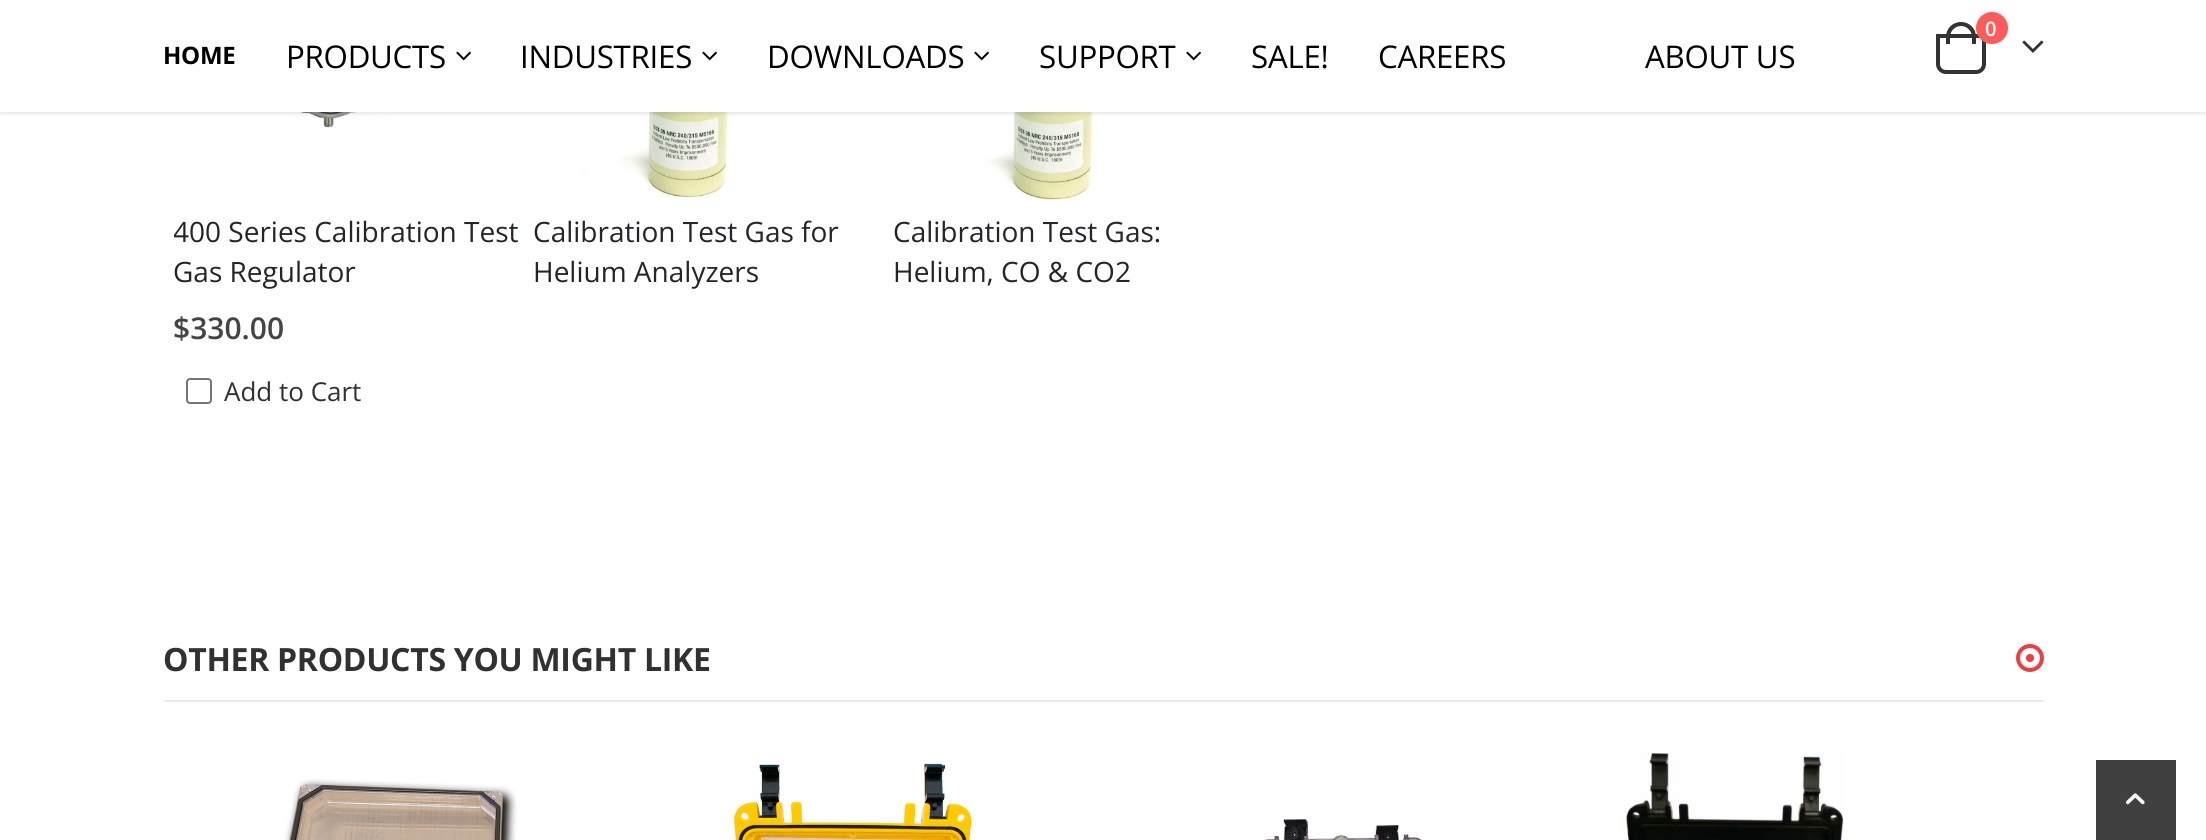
import math
import cairocffi as cairo

surface = cairo.ImageSurface(cairo.FORMAT_RGB24, 2206, 840)
cr = cairo.Context(surface)
options = cairo.FontOptions()
options.set_hint_metrics(cairo.HINT_METRICS_OFF)
options.set_hint_style(cairo.HINT_STYLE_NONE)
cr.set_font_options(options)
cr.set_miter_limit(4)


def use_color(code):
    cr.set_source_rgb(*(v / 255 for v in bytes.fromhex(code[-6:])))


def spaced_text(x, y, s, letter, word):
    cr.move_to(x, y)
    for ch in s:
        cr.show_text(ch)
        cr.rel_move_to(letter + word * (ch == ' '), 0)


def round_rect(x, y, w, h, r):
    cr.new_sub_path()
    for i, (u, v) in enumerate([(x + w - r, y + h - r), (x + r, y + h - r), (x + r, y + r), (x + w - r, y + r)]):
        cr.arc(u, v, r, i * math.pi / 2, (i + 1) * math.pi / 2)
    cr.close_path()


def shadow(x, y, w, h, r, blur, alpha):
    cr.push_group_with_content(cairo.CONTENT_ALPHA)
    cr.set_operator(cairo.OPERATOR_SOURCE)
    for i in range(15, -16, -2):
        e = blur * i / 6
        if min(w, h) + 2 * e > 0:
            cr.set_source_rgba(0, 0, 0, alpha * math.erfc((i - 1) / 8.5) / 2)
            round_rect(x - e, y - e, w + 2 * e, h + 2 * e, max(0, min(r + e + blur * .6, min(w, h) / 2 + e)))
            cr.fill()
    cr.mask(cr.pop_group())


def picture(path, x, y, w, h):
    cr.save()
    cr.set_source_surface(cairo.ImageSurface.create_from_png(path), x, y)
    cr.rectangle(x, y, w, h)
    cr.fill()
    cr.restore()


use_color("#ffffff")
cr.paint()
picture("img3.png", 288, 112, 102, 17)
picture("img4.png", 581, 112, 150, 86)
picture("img5.png", 984, 112, 112, 88)
use_color("#000000")
shadow(0, 2, 2206, 112, 0, 2, 0.1)
use_color("#ffffff")
cr.rectangle(0, 0, 2206, 112)
cr.fill()
cr.new_path()
cr.move_to(1938, 36)
cr.line_to(1984, 36)
cr.line_to(1984, 64)
cr.curve_to(1984, 68.5, 1980.5, 72, 1976, 72)
cr.line_to(1946, 72)
cr.curve_to(1941.5, 72, 1938, 68.5, 1938, 64)
cr.close_path()
use_color("#333333")
cr.set_line_width(4)
cr.stroke()
cr.set_fill_rule(cairo.FILL_RULE_EVEN_ODD)
cr.new_path()
cr.move_to(1961, 22)
cr.curve_to(1969.5, 22, 1976, 28.5, 1976, 37)
cr.line_to(1976, 44)
cr.line_to(1946, 44)
cr.line_to(1946, 37)
cr.curve_to(1946, 28.5, 1952.5, 22, 1961, 22)
cr.close_path()
cr.move_to(1961, 26)
cr.curve_to(1967, 26, 1972, 31, 1972, 37)
cr.line_to(1972, 44)
cr.line_to(1950, 44)
cr.line_to(1950, 37)
cr.curve_to(1950, 31, 1955, 26, 1961, 26)
cr.close_path()
cr.fill()
use_color("#ff5b5b")
cr.arc(1992, 28, 16, 0, 2 * math.pi)
cr.fill()
cr.select_font_face("Open Sans SemiBold")
cr.set_font_size(20)
use_color("#ffffff")
cr.move_to(1985, 36)
cr.show_text("0")
picture("img1.png", 2022, 40, 22, 13)
cr.select_font_face("Open Sans", cairo.FONT_SLANT_NORMAL, cairo.FONT_WEIGHT_BOLD)
cr.set_font_size(24)
use_color("#000000")
spaced_text(163, 64, "HOME", -0.25, 0)
cr.select_font_face("Open Sans")
cr.set_font_size(31.25)
spaced_text(286, 68, "PRODUCTS", -0.25, 0)
picture("img2.png", 456, 51, 15, 10)
spaced_text(520, 68, "INDUSTRIES", -0.25, 0)
picture("img2.png", 702, 51, 15, 10)
spaced_text(767, 68, "DOWNLOADS", -0.25, 0)
picture("img2.png", 974, 51, 15, 10)
spaced_text(1039, 68, "SUPPORT", -0.25, 0)
picture("img2.png", 1186, 51, 15, 10)
spaced_text(1251, 68, "SALE!", -0.25, 0)
spaced_text(1378, 68, "CAREERS", -0.25, 0)
spaced_text(1645, 68, "ABOUT US", -0.25, 0)
cr.save()
cr.set_fill_rule(cairo.FILL_RULE_WINDING)
cr.rectangle(174, 212, 352, 78)
cr.clip()
cr.set_font_size(28)
use_color("#222529")
cr.move_to(173, 242)
cr.show_text("400 Series Calibration Test")
cr.restore()
cr.set_font_size(28)
use_color("#222529")
cr.move_to(173, 282)
cr.show_text("Gas Regulator")
cr.select_font_face("Open Sans SemiBold")
cr.set_font_size(30)
use_color("#444444")
cr.move_to(173, 339)
cr.show_text("$330.00")
round_rect(187, 379, 24, 24, 3)
use_color("#767676")
cr.set_line_width(2)
cr.stroke()
cr.select_font_face("Open Sans")
cr.set_font_size(26)
use_color("#313131")
cr.move_to(224, 401)
cr.show_text("Add to Cart")
cr.set_font_size(28)
use_color("#222529")
cr.move_to(533, 242)
cr.show_text("Calibration Test Gas for")
cr.move_to(533, 282)
cr.show_text("Helium Analyzers")
cr.move_to(893, 242)
cr.show_text("Calibration Test Gas:")
cr.move_to(893, 282)
cr.show_text("Helium, CO & CO2")
cr.new_path()
cr.arc(2030, 658, 12, 0, 2 * math.pi)
use_color("#ee3d43")
cr.set_line_width(4)
cr.stroke()
cr.arc(2030, 658, 4, 0, 2 * math.pi)
cr.fill()
picture("img6.png", 284, 779, 233, 61)
picture("img7.png", 734, 763, 238, 77)
picture("img8.png", 1264, 819, 158, 21)
picture("img9.png", 1622, 752, 222, 88)
use_color("#ebebeb")
cr.rectangle(164, 700, 1880, 2)
cr.fill()
cr.select_font_face("Open Sans", cairo.FONT_SLANT_NORMAL, cairo.FONT_WEIGHT_BOLD)
cr.set_font_size(32)
use_color("#313131")
spaced_text(163, 671, "OTHER PRODUCTS YOU MIGHT LIKE", -0.3, 0)
use_color("#404040")
cr.rectangle(2096, 760, 80, 80)
cr.fill()
picture("img10.png", 2126, 793, 19, 12)
surface.write_to_png("result.png")
